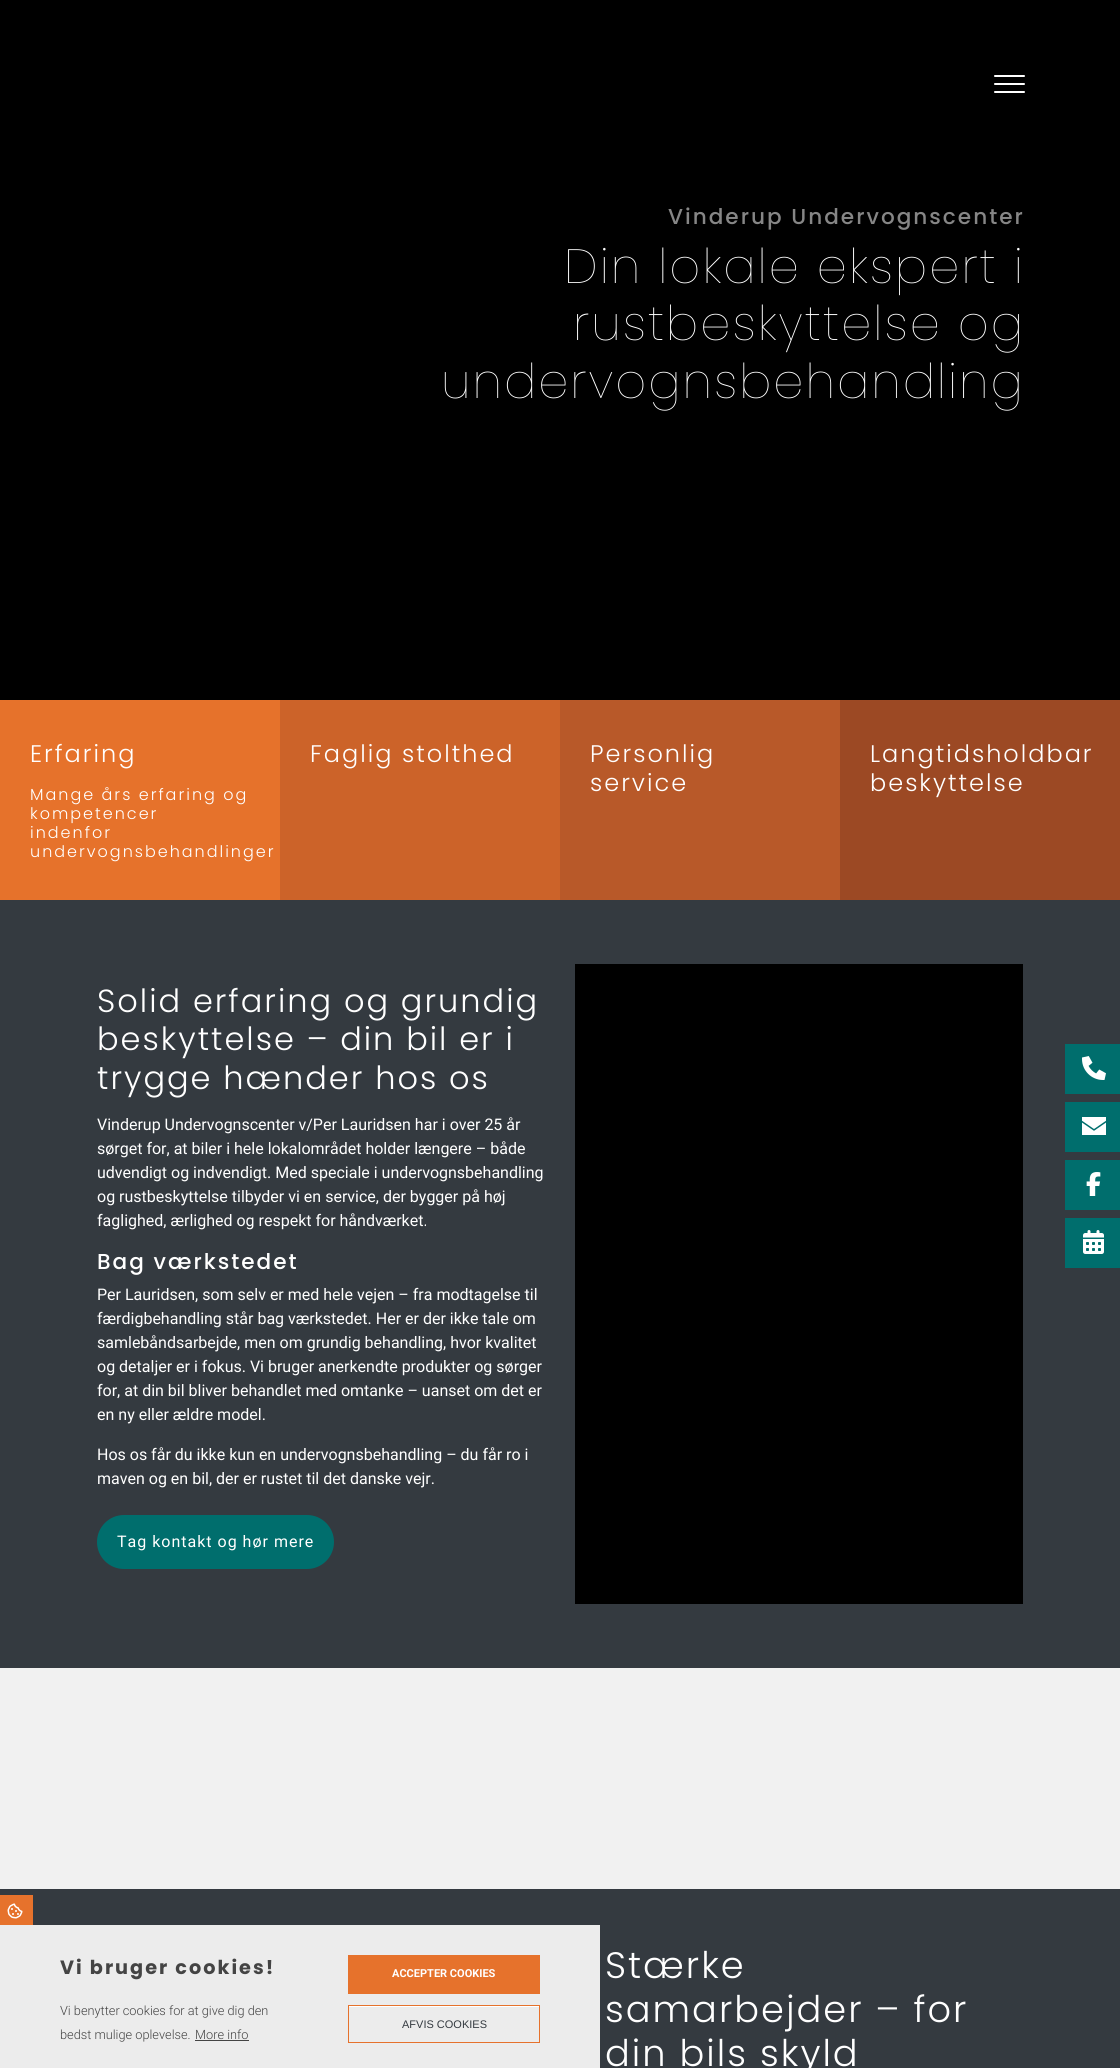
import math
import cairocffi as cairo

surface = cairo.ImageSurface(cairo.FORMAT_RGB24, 1120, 2068)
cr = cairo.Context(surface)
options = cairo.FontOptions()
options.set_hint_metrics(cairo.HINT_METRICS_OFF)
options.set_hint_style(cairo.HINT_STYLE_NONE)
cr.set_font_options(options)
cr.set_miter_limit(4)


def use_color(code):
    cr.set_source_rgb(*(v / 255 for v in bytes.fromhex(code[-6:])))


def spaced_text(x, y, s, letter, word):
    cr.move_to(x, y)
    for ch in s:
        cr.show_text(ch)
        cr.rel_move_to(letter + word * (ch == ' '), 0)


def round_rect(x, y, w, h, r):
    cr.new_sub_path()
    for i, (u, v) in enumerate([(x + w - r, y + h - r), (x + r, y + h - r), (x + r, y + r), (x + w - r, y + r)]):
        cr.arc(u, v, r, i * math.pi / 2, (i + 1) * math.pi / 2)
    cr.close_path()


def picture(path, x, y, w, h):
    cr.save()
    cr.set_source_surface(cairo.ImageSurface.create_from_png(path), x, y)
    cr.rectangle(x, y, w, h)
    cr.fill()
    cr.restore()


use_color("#f1f1f1")
cr.paint()
use_color("#000000")
cr.rectangle(0, 0, 1120, 700)
cr.fill()
use_color("#ffffff")
round_rect(994, 83, 31, 2, 1)
cr.fill()
round_rect(994, 75, 31, 2, 1)
cr.fill()
round_rect(994, 91, 31, 2, 1)
cr.fill()
cr.select_font_face("Poppins Medium")
cr.set_font_size(21.6)
use_color("#868686")
spaced_text(668, 224, "Vinderup Undervognscenter", 2, 0)
cr.select_font_face("Poppins Thin")
cr.set_font_size(48)
use_color("#ffffff")
spaced_text(564, 283, "Din lokale ekspert i", 2, 0)
spaced_text(573, 340, "rustbeskyttelse og", 2, 0)
spaced_text(441, 398, "undervognsbehandling", 2, 0)
use_color("#e6722b")
cr.rectangle(0, 700, 280, 200)
cr.fill()
cr.select_font_face("Poppins Light")
cr.set_font_size(24)
use_color("#ffffff")
spaced_text(30, 762, "Erfaring", 2, 0)
cr.set_font_size(16)
spaced_text(30, 800, "Mange års erfaring og", 2, 0)
spaced_text(30, 819, "kompetencer", 2, 0)
spaced_text(30, 838, "indenfor", 2, 0)
spaced_text(30, 857, "undervognsbehandlinger", 2, 0)
use_color("#cc6329")
cr.rectangle(280, 700, 280, 200)
cr.fill()
cr.set_font_size(24)
use_color("#ffffff")
spaced_text(310, 762, "Faglig stolthed", 2, 0)
use_color("#b85929")
cr.rectangle(560, 700, 280, 200)
cr.fill()
use_color("#ffffff")
spaced_text(590, 762, "Personlig", 2, 0)
spaced_text(590, 791, "service", 2, 0)
use_color("#9c4924")
cr.rectangle(840, 700, 280, 200)
cr.fill()
use_color("#ffffff")
spaced_text(870, 762, "Langtidsholdbar", 2, 0)
spaced_text(870, 791, "beskyttelse", 2, 0)
use_color("#343a40")
cr.rectangle(0, 900, 1120, 768)
cr.fill()
cr.set_font_size(32)
use_color("#ffffff")
spaced_text(97, 1012, "Solid erfaring og grundig", 2, 0)
spaced_text(97, 1050, "beskyttelse – din bil er i", 2, 0)
spaced_text(97, 1089, "trygge hænder hos os", 2, 0)
cr.select_font_face("Roboto")
cr.set_font_size(16)
cr.move_to(97, 1130)
cr.show_text("Vinderup Undervognscenter v/Per Lauridsen har i over 25 år")
cr.move_to(97, 1154)
cr.show_text("sørget for, at biler i hele lokalområdet holder længere – både")
cr.move_to(97, 1178)
cr.show_text("udvendigt og indvendigt. Med speciale i undervognsbehandling")
cr.move_to(97, 1202)
cr.show_text("og rustbeskyttelse tilbyder vi en service, der bygger på høj")
cr.move_to(97, 1226)
cr.show_text("faglighed, ærlighed og respekt for håndværket.")
cr.select_font_face("Poppins Medium")
cr.set_font_size(21.6)
spaced_text(97, 1269, "Bag værkstedet", 2, 0)
cr.select_font_face("Roboto")
cr.set_font_size(16)
cr.move_to(97, 1300)
cr.show_text("Per Lauridsen, som selv er med hele vejen – fra modtagelse til")
cr.move_to(97, 1324)
cr.show_text("færdigbehandling står bag værkstedet. Her er der ikke tale om")
cr.move_to(97, 1348)
cr.show_text("samlebåndsarbejde, men om grundig behandling, hvor kvalitet")
cr.move_to(97, 1372)
cr.show_text("og detaljer er i fokus. Vi bruger anerkendte produkter og sørger")
cr.move_to(97, 1396)
cr.show_text("for, at din bil bliver behandlet med omtanke – uanset om det er")
cr.move_to(97, 1420)
cr.show_text("en ny eller ældre model.")
cr.move_to(97, 1460)
cr.show_text("Hos os får du ikke kun en undervognsbehandling – du får ro i")
cr.move_to(97, 1484)
cr.show_text("maven og en bil, der er rustet til det danske vejr.")
use_color("#006e6d")
round_rect(97, 1515, 237, 54, 27)
cr.fill()
use_color("#ffffff")
spaced_text(117, 1547, "Tag kontakt og hør mere", 1, 0)
use_color("#000000")
cr.rectangle(575, 964, 448, 640)
cr.fill()
use_color("#343a40")
cr.rectangle(0, 1889, 1120, 179)
cr.fill()
cr.select_font_face("Poppins Light")
cr.set_font_size(36.75)
use_color("#ffffff")
spaced_text(605, 1978, "Stærke", 2, 0)
spaced_text(605, 2022, "samarbejder – for", 2, 0)
spaced_text(605, 2066, "din bils skyld", 2, 0)
use_color("#006e6d")
cr.rectangle(1065, 1044, 55, 50)
cr.fill()
picture("img1.png", 1082, 1056, 24, 24)
cr.rectangle(1065, 1102, 55, 50)
cr.fill()
picture("img2.png", 1082, 1117, 24, 18)
cr.rectangle(1065, 1160, 55, 50)
cr.fill()
picture("img3.png", 1086, 1172, 15, 24)
cr.rectangle(1065, 1218, 55, 50)
cr.fill()
picture("img4.png", 1083, 1230, 21, 24)
use_color("#ececec")
cr.rectangle(0, 1925, 600, 143)
cr.fill()
use_color("#e6722c")
cr.rectangle(0, 1895, 33, 30)
cr.fill()
picture("img5.png", 7, 1903, 16, 16)
cr.select_font_face("Poppins", cairo.FONT_SLANT_NORMAL, cairo.FONT_WEIGHT_BOLD)
cr.set_font_size(19.25)
use_color("#444444")
spaced_text(60, 1974, "Vi bruger cookies!", 2, 0)
cr.select_font_face("Roboto Light")
cr.set_font_size(12.75)
cr.move_to(60, 2015)
cr.show_text("Vi benytter cookies for at give dig den")
cr.move_to(60, 2039)
cr.show_text("bedst mulige oplevelse.")
cr.move_to(195, 2039)
cr.show_text("More info")
cr.rectangle(195, 2040, 54, 1)
cr.fill()
use_color("#e6722c")
cr.rectangle(348, 1955, 192, 39)
cr.fill()
cr.select_font_face("Roboto", cairo.FONT_SLANT_NORMAL, cairo.FONT_WEIGHT_BOLD)
cr.set_font_size(11)
use_color("#ffffff")
cr.move_to(392, 1977)
cr.show_text("ACCEPTER COOKIES")
cr.rectangle(349, 2006, 190, 1)
cr.fill()
cr.rectangle(348.5, 2005.5, 191, 37)
use_color("#e6722c")
cr.set_line_width(1)
cr.stroke()
cr.select_font_face("Liberation Sans")
use_color("#343a40")
cr.move_to(402, 2028)
cr.show_text("AFVIS COOKIES")
surface.write_to_png("result.png")
